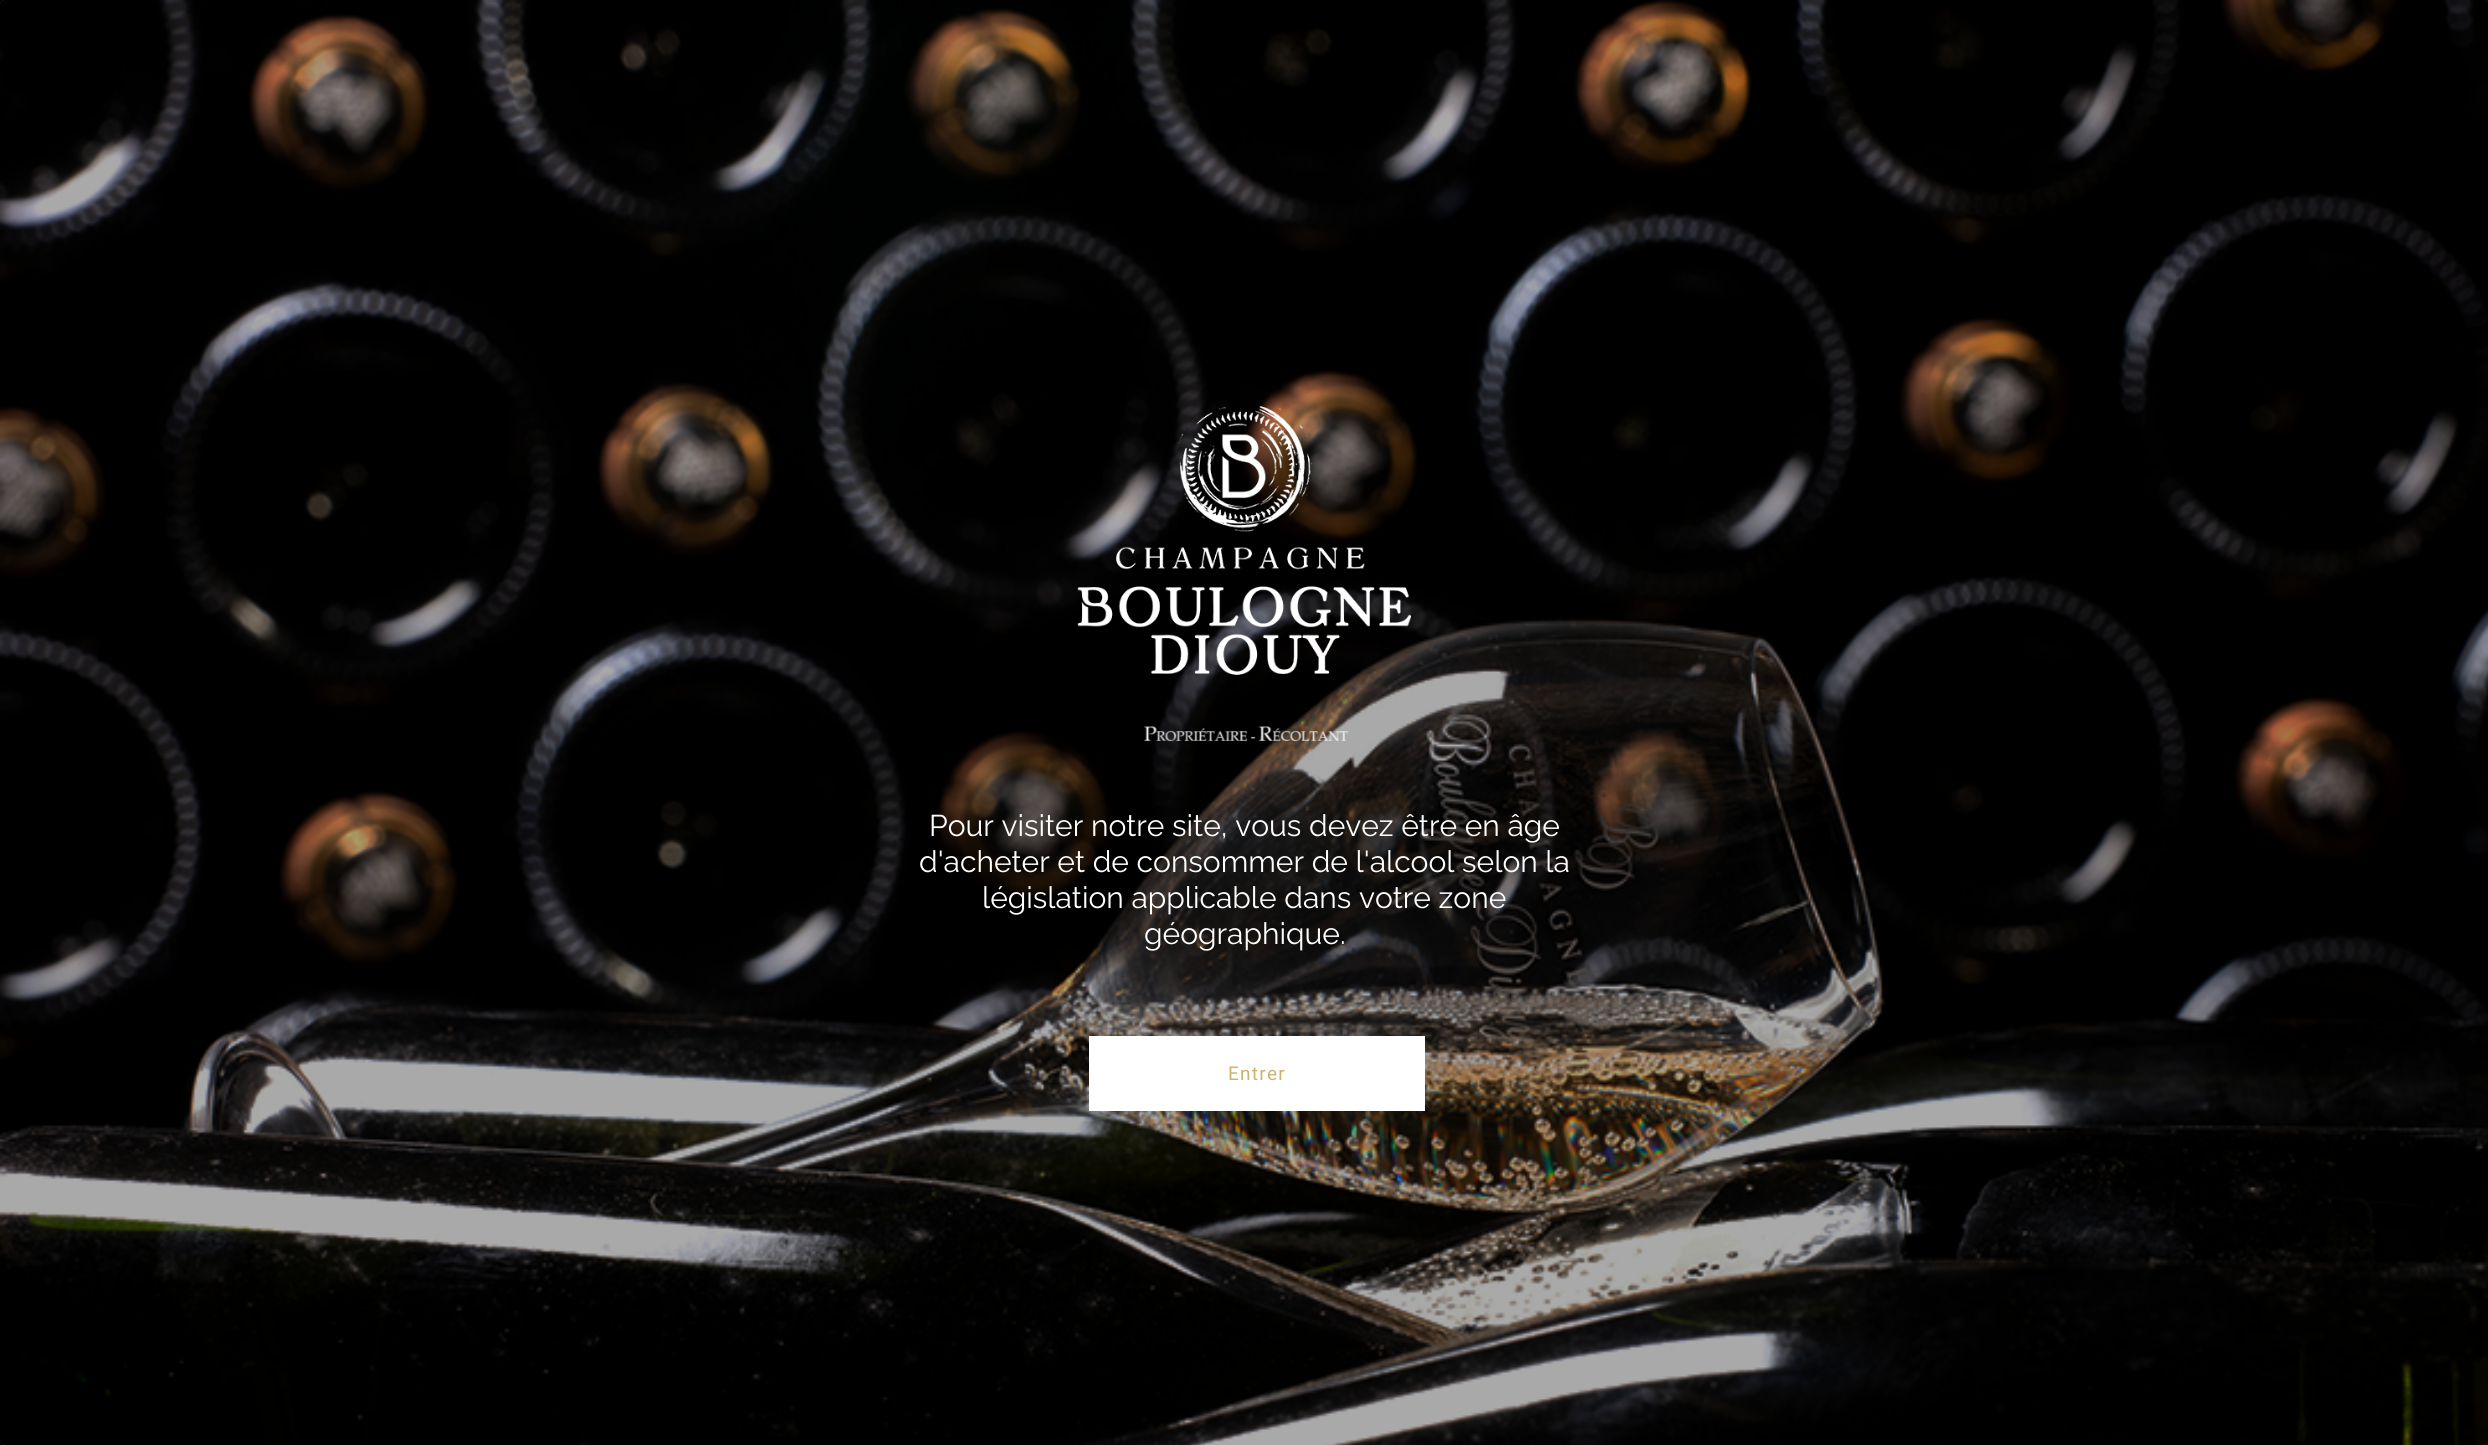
import math
import cairocffi as cairo

surface = cairo.ImageSurface(cairo.FORMAT_RGB24, 2488, 1445)
cr = cairo.Context(surface)
options = cairo.FontOptions()
options.set_hint_metrics(cairo.HINT_METRICS_OFF)
options.set_hint_style(cairo.HINT_STYLE_NONE)
cr.set_font_options(options)
cr.set_miter_limit(4)


def use_color(code):
    cr.set_source_rgb(*(v / 255 for v in bytes.fromhex(code[-6:])))


def spaced_text(x, y, s, letter, word):
    cr.move_to(x, y)
    for ch in s:
        cr.show_text(ch)
        cr.rel_move_to(letter + word * (ch == ' '), 0)


def round_rect(x, y, w, h, r):
    cr.new_sub_path()
    for i, (u, v) in enumerate([(x + w - r, y + h - r), (x + r, y + h - r), (x + r, y + r), (x + w - r, y + r)]):
        cr.arc(u, v, r, i * math.pi / 2, (i + 1) * math.pi / 2)
    cr.close_path()


def picture(path, x, y, w, h):
    cr.save()
    cr.set_source_surface(cairo.ImageSurface.create_from_png(path), x, y)
    cr.rectangle(x, y, w, h)
    cr.fill()
    cr.restore()


use_color("#000000")
cr.paint()
use_color("#3b3b3b")
round_rect(0, 0, 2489, 1445, 5)
cr.fill()
picture("img1.png", 0, 0, 2488, 1445)
picture("img2.png", 1077, 406, 334, 335)
cr.select_font_face("Raleway")
cr.set_font_size(30)
use_color("#ffffff")
cr.move_to(929, 836)
cr.show_text("Pour visiter notre site, vous devez être en âge")
cr.move_to(919, 872)
cr.show_text("d'acheter et de consommer de l'alcool selon la")
cr.move_to(982, 908)
cr.show_text("législation applicable dans votre zone")
cr.move_to(1144, 944)
cr.show_text("géographique.")
cr.rectangle(1089, 1036, 336, 75)
cr.fill()
cr.select_font_face("Roboto")
cr.set_font_size(19)
use_color("#ccb36d")
spaced_text(1228, 1080, "Entrer", 1.25, 0)
surface.write_to_png("result.png")
